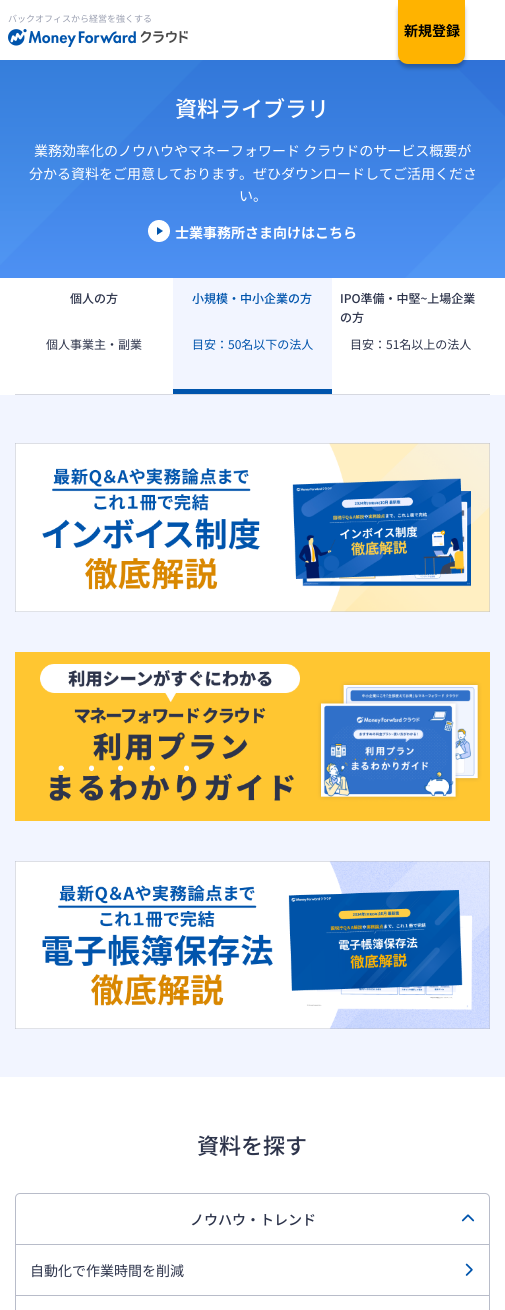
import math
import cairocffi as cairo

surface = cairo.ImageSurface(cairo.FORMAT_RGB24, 505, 1310)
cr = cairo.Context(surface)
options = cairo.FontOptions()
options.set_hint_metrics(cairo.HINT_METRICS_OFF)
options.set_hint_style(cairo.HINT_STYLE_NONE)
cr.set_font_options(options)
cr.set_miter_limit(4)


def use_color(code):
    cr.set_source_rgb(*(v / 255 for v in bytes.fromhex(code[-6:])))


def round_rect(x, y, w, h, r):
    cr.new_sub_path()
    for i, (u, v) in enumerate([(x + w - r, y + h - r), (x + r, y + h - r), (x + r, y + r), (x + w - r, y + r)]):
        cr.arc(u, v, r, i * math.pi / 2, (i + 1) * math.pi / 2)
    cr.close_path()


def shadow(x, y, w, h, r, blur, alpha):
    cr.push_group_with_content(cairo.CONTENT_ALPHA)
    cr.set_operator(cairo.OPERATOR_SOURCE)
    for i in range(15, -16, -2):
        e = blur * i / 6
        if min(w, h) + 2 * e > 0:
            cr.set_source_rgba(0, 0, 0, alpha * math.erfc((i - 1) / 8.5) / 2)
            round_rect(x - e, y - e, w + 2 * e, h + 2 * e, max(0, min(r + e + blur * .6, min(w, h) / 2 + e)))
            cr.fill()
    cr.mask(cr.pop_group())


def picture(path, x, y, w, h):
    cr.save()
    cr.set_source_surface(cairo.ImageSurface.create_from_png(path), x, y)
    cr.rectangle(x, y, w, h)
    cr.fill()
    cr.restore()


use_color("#ffffff")
cr.paint()
cr.select_font_face("Noto Sans JP")
cr.set_font_size(9)
use_color("#9ba0b1")
cr.move_to(8, 22)
cr.show_text("バックオフィスから経営を強くする")
picture("img1.png", 8, 29, 180, 18)
picture("img2.png", 0, 60, 505, 218)
use_color("#000000")
shadow(398, 1, 67, 67, 10, 2, 0.25)
use_color("#ffb300")
cr.new_path()
cr.move_to(398, -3)
cr.line_to(465, -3)
cr.line_to(465, 54)
cr.curve_to(465, 59.5, 460.5, 64, 455, 64)
cr.line_to(408, 64)
cr.curve_to(402.5, 64, 398, 59.5, 398, 54)
cr.close_path()
cr.fill()
cr.select_font_face("Noto Sans JP", cairo.FONT_SLANT_NORMAL, cairo.FONT_WEIGHT_BOLD)
cr.set_font_size(14)
use_color("#000000")
cr.move_to(404, 36)
cr.show_text("新規登録")
cr.select_font_face("Noto Sans JP Medium")
cr.set_font_size(22)
use_color("#ffffff")
cr.move_to(175, 117)
cr.show_text("資料ライブラリ")
cr.select_font_face("Noto Sans JP")
cr.set_font_size(14)
cr.move_to(34, 156)
cr.show_text("業務効率化のノウハウやマネーフォワード クラウドのサービス概要が")
cr.move_to(29, 179)
cr.show_text("分かる資料をご用意しております。ぜひダウンロードしてご活用くださ")
cr.move_to(239, 201)
cr.show_text("い。")
picture("img3.png", 148, 220, 22, 22)
cr.select_font_face("Noto Sans JP", cairo.FONT_SLANT_NORMAL, cairo.FONT_WEIGHT_BOLD)
cr.move_to(175, 238)
cr.show_text("士業事務所さま向けはこちら")
use_color("#d6d8e0")
cr.rectangle(15, 394, 475, 1)
cr.fill()
cr.select_font_face("Noto Sans JP Medium")
cr.set_font_size(12)
use_color("#2d344b")
cr.move_to(70, 303)
cr.show_text("個人の方")
cr.select_font_face("Noto Sans JP")
cr.move_to(46, 349)
cr.show_text("個人事業主・副業")
use_color("#f2f5ff")
cr.rectangle(173, 278, 159, 111)
cr.fill()
cr.select_font_face("Noto Sans JP Medium")
use_color("#0054ac")
cr.move_to(192, 303)
cr.show_text("小規模・中小企業の方")
cr.select_font_face("Noto Sans JP")
cr.move_to(192, 349)
cr.show_text("目安：50名以下の法人")
cr.rectangle(173, 389, 159, 5)
cr.fill()
cr.select_font_face("Noto Sans JP Medium")
use_color("#2d344b")
cr.move_to(340, 303)
cr.show_text("IPO準備・中堅~上場企業")
cr.move_to(340, 322)
cr.show_text("の方")
cr.select_font_face("Noto Sans JP")
cr.move_to(350, 349)
cr.show_text("目安：51名以上の法人")
use_color("#f2f5ff")
cr.rectangle(0, 395, 505, 682)
cr.fill()
picture("img4.png", 15, 443, 475, 169)
picture("img5.png", 15, 652, 475, 169)
picture("img6.png", 15, 861, 475, 168)
cr.select_font_face("Noto Sans JP Medium")
cr.set_font_size(22)
use_color("#2d344b")
cr.move_to(197, 1154)
cr.show_text("資料を探す")
cr.new_path()
cr.move_to(20, 1193.5)
cr.line_to(485, 1193.5)
cr.curve_to(487.5, 1193.5, 489.5, 1195.5, 489.5, 1198)
cr.line_to(489.5, 1244.5)
cr.line_to(15.5, 1244.5)
cr.line_to(15.5, 1198)
cr.curve_to(15.5, 1195.5, 17.5, 1193.5, 20, 1193.5)
cr.close_path()
use_color("#b8bcc9")
cr.set_line_width(1)
cr.stroke()
cr.set_font_size(14)
use_color("#2d344b")
cr.move_to(190, 1225)
cr.show_text("ノウハウ・トレンド")
picture("img7.png", 461, 1214, 14, 8)
use_color("#b8bcc9")
cr.rectangle(489, 1245, 1, 65)
cr.fill()
cr.rectangle(15, 1245, 1, 65)
cr.fill()
cr.rectangle(16, 1295, 473, 1)
cr.fill()
cr.select_font_face("Noto Sans JP")
use_color("#2d344b")
cr.move_to(30, 1276)
cr.show_text("自動化で作業時間を削減")
picture("img8.png", 465, 1263, 8, 13)
surface.write_to_png("result.png")
